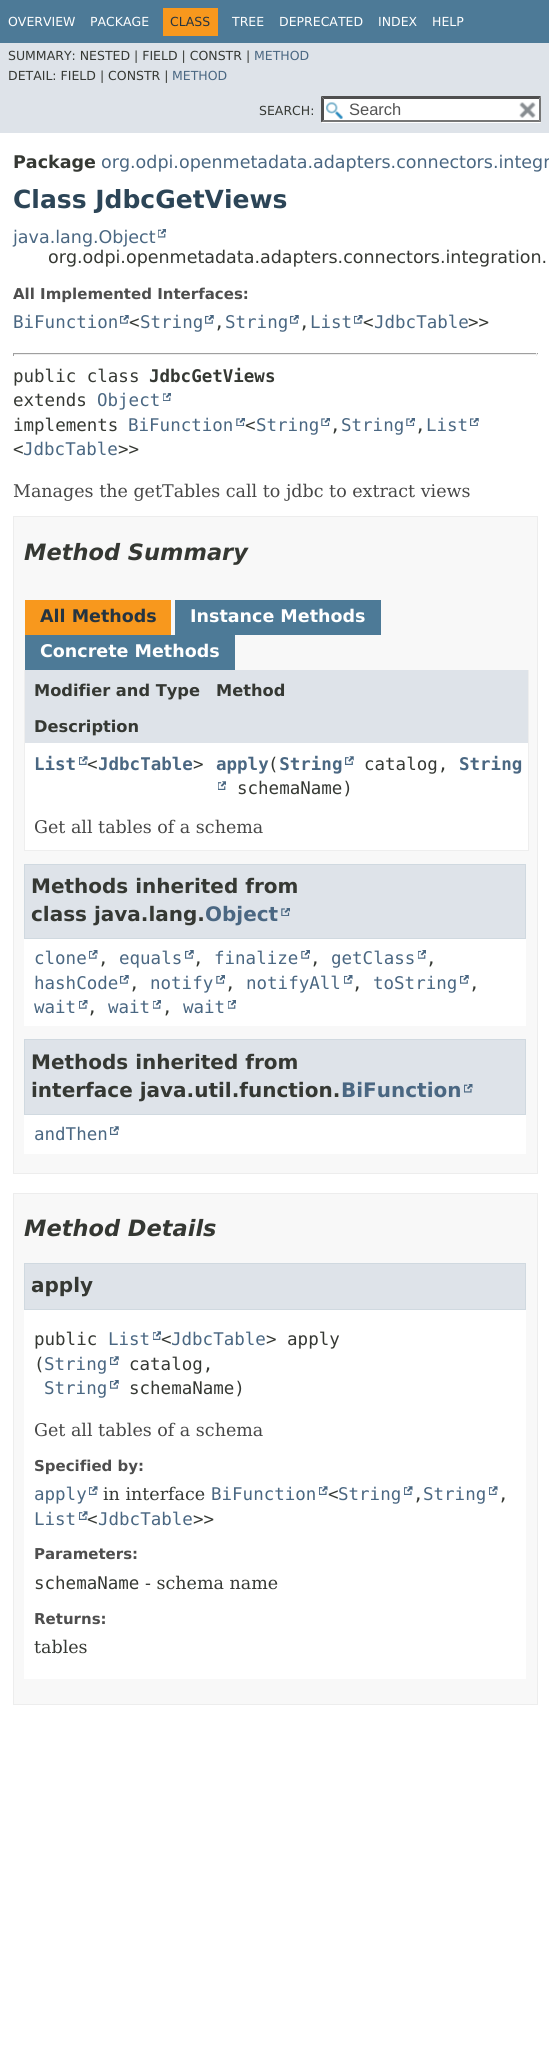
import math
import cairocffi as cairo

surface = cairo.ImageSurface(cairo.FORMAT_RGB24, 549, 2072)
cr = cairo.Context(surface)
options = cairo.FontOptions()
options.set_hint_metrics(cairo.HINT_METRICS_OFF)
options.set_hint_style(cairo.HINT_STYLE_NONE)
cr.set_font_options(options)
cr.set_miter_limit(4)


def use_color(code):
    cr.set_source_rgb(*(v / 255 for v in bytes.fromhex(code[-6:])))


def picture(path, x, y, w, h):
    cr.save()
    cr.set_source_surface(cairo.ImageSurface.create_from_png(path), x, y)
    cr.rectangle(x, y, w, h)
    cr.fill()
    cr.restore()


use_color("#ffffff")
cr.paint()
use_color("#4d7a97")
cr.rectangle(0, 0, 549, 43)
cr.fill()
cr.select_font_face("DejaVu Sans")
cr.set_font_size(12.5)
use_color("#ffffff")
cr.move_to(8, 26)
cr.show_text("OVERVIEW")
cr.move_to(90, 26)
cr.show_text("PACKAGE")
use_color("#f8981d")
cr.rectangle(163, 8, 55, 28)
cr.fill()
use_color("#253441")
cr.move_to(170, 26)
cr.show_text("CLASS")
use_color("#ffffff")
cr.move_to(232, 26)
cr.show_text("TREE")
cr.move_to(279, 26)
cr.show_text("DEPRECATED")
cr.move_to(378, 26)
cr.show_text("INDEX")
cr.move_to(432, 26)
cr.show_text("HELP")
use_color("#dee3e9")
cr.rectangle(0, 43, 549, 90)
cr.fill()
use_color("#353833")
cr.move_to(8, 60)
cr.show_text("SUMMARY: NESTED | FIELD | CONSTR |")
use_color("#4a6782")
cr.move_to(254, 60)
cr.show_text("METHOD")
use_color("#353833")
cr.move_to(8, 80)
cr.show_text("DETAIL: FIELD | CONSTR |")
use_color("#4a6782")
cr.move_to(172, 80)
cr.show_text("METHOD")
use_color("#353833")
cr.move_to(259, 115)
cr.show_text("SEARCH:")
use_color("#ffffff")
cr.rectangle(321, 96, 220, 27)
cr.fill()
picture("img1.png", 326, 102, 17, 17)
use_color("#4f4f4f")
cr.new_path()
cr.move_to(321, 96)
cr.line_to(541, 96)
cr.line_to(539, 99)
cr.line_to(324, 99)
cr.close_path()
cr.fill()
use_color("#767676")
cr.new_path()
cr.move_to(541, 96)
cr.line_to(541, 122.5)
cr.line_to(539, 120)
cr.line_to(539, 99)
cr.close_path()
cr.fill()
cr.new_path()
cr.move_to(541, 122)
cr.line_to(321, 122)
cr.line_to(324, 120)
cr.line_to(539, 120)
cr.close_path()
cr.fill()
use_color("#4f4f4f")
cr.new_path()
cr.move_to(321, 122.5)
cr.line_to(321, 96)
cr.line_to(324, 99)
cr.line_to(324, 120)
cr.close_path()
cr.fill()
cr.select_font_face("Liberation Sans")
cr.set_font_size(16.5)
use_color("#545454")
cr.move_to(349, 115)
cr.show_text("Search")
picture("img2.png", 519, 102, 17, 16)
cr.select_font_face("DejaVu Sans", cairo.FONT_SLANT_NORMAL, cairo.FONT_WEIGHT_BOLD)
cr.set_font_size(17.5)
use_color("#353833")
cr.move_to(13, 168)
cr.show_text("Package")
cr.select_font_face("DejaVu Sans")
use_color("#4a6782")
cr.move_to(101, 168)
cr.show_text("org.odpi.openmetadata.adapters.connectors.integr")
cr.select_font_face("DejaVu Sans", cairo.FONT_SLANT_NORMAL, cairo.FONT_WEIGHT_BOLD)
cr.set_font_size(25)
use_color("#2c4557")
cr.move_to(13, 208)
cr.show_text("Class JdbcGetViews")
cr.select_font_face("DejaVu Sans")
cr.set_font_size(17.5)
use_color("#4a6782")
cr.move_to(13, 243)
cr.show_text("java.lang.Object")
picture("img3.png", 158, 229, 8, 9)
use_color("#353833")
cr.move_to(48, 263)
cr.show_text("org.odpi.openmetadata.adapters.connectors.integration.")
cr.select_font_face("DejaVu Sans", cairo.FONT_SLANT_NORMAL, cairo.FONT_WEIGHT_BOLD)
cr.set_font_size(15)
use_color("#4e4e4e")
cr.move_to(13, 299)
cr.show_text("All Implemented Interfaces:")
cr.select_font_face("DejaVu Sans Mono")
cr.set_font_size(17.5)
use_color("#4a6782")
cr.move_to(13, 328)
cr.show_text("BiFunction")
picture("img4.png", 120, 315, 9, 9)
use_color("#353833")
cr.move_to(129, 328)
cr.show_text("<")
use_color("#4a6782")
cr.move_to(140, 328)
cr.show_text("String")
picture("img4.png", 205, 315, 9, 9)
cr.move_to(225, 328)
cr.show_text("String")
picture("img4.png", 290, 315, 9, 9)
cr.move_to(310, 328)
cr.show_text("List")
picture("img5.png", 354, 315, 9, 9)
use_color("#353833")
cr.move_to(363, 328)
cr.show_text("<")
use_color("#4a6782")
cr.move_to(374, 328)
cr.show_text("JdbcTable")
use_color("#353833")
cr.move_to(468, 328)
cr.show_text(">>")
cr.move_to(214, 328)
cr.show_text(",")
cr.move_to(299, 328)
cr.show_text(",")
use_color("#9f9f9f")
cr.rectangle(13, 353, 525, 1)
cr.fill()
use_color("#eeeeee")
cr.rectangle(536, 353, 1, 3)
cr.fill()
cr.rectangle(13, 354, 525, 1)
cr.fill()
use_color("#9f9f9f")
cr.rectangle(13, 353, 1, 3)
cr.fill()
use_color("#353833")
cr.move_to(13, 382)
cr.show_text("public class")
cr.select_font_face("DejaVu Sans Mono", cairo.FONT_SLANT_NORMAL, cairo.FONT_WEIGHT_BOLD)
cr.move_to(149, 382)
cr.show_text("JdbcGetViews")
cr.select_font_face("DejaVu Sans Mono")
cr.move_to(13, 406)
cr.show_text("extends")
use_color("#4a6782")
cr.move_to(97, 406)
cr.show_text("Object")
picture("img6.png", 163, 393, 8, 8)
use_color("#353833")
cr.move_to(13, 431)
cr.show_text("implements")
use_color("#4a6782")
cr.move_to(128, 431)
cr.show_text("BiFunction")
picture("img7.png", 236, 418, 9, 8)
use_color("#353833")
cr.move_to(245, 431)
cr.show_text("<")
use_color("#4a6782")
cr.move_to(256, 431)
cr.show_text("String")
picture("img7.png", 321, 418, 9, 8)
cr.move_to(341, 431)
cr.show_text("String")
picture("img7.png", 406, 418, 9, 8)
cr.move_to(426, 431)
cr.show_text("List")
picture("img8.png", 470, 418, 9, 8)
use_color("#353833")
cr.move_to(330, 431)
cr.show_text(",")
cr.move_to(415, 431)
cr.show_text(",")
cr.move_to(13, 455)
cr.show_text("<")
use_color("#4a6782")
cr.move_to(23, 455)
cr.show_text("JdbcTable")
use_color("#353833")
cr.move_to(118, 455)
cr.show_text(">>")
cr.select_font_face("DejaVu Serif")
use_color("#474747")
cr.move_to(13, 497)
cr.show_text("Manages the getTables call to jdbc to extract views")
use_color("#f8f8f8")
cr.rectangle(13.5, 516.5, 524, 657)
cr.fill_preserve()
use_color("#ededed")
cr.set_line_width(1)
cr.stroke()
cr.select_font_face("DejaVu Sans", cairo.FONT_SLANT_ITALIC, cairo.FONT_WEIGHT_BOLD)
cr.set_font_size(22.5)
use_color("#353833")
cr.move_to(24, 560)
cr.show_text("Method Summary")
use_color("#f8981d")
cr.rectangle(25, 600, 146, 35)
cr.fill()
cr.select_font_face("DejaVu Sans", cairo.FONT_SLANT_NORMAL, cairo.FONT_WEIGHT_BOLD)
cr.set_font_size(17.5)
use_color("#253441")
cr.move_to(40, 622)
cr.show_text("All Methods")
use_color("#4d7a97")
cr.rectangle(175, 600, 206, 35)
cr.fill()
use_color("#ffffff")
cr.move_to(190, 622)
cr.show_text("Instance Methods")
use_color("#4d7a97")
cr.rectangle(25, 635, 210, 35)
cr.fill()
use_color("#ffffff")
cr.move_to(40, 657)
cr.show_text("Concrete Methods")
use_color("#eeeeee")
cr.rectangle(528, 670, 1, 181)
cr.fill()
cr.rectangle(24, 850, 505, 1)
cr.fill()
cr.rectangle(24, 670, 1, 181)
cr.fill()
use_color("#dee3e9")
cr.rectangle(25, 670, 503, 36)
cr.fill()
cr.set_font_size(16.25)
use_color("#353833")
cr.move_to(34, 696)
cr.show_text("Modifier and Type")
cr.move_to(216, 696)
cr.show_text("Method")
use_color("#dee3e9")
cr.rectangle(25, 706, 503, 37)
cr.fill()
use_color("#353833")
cr.move_to(34, 732)
cr.show_text("Description")
use_color("#ffffff")
cr.rectangle(25, 743, 503, 62)
cr.fill()
cr.select_font_face("DejaVu Sans Mono", cairo.FONT_SLANT_NORMAL, cairo.FONT_WEIGHT_BOLD)
cr.set_font_size(17.5)
use_color("#4a6782")
cr.move_to(34, 770)
cr.show_text("List")
picture("img9.png", 79, 756, 9, 9)
cr.select_font_face("DejaVu Sans Mono")
use_color("#353833")
cr.move_to(87, 770)
cr.show_text("<")
cr.select_font_face("DejaVu Sans Mono", cairo.FONT_SLANT_NORMAL, cairo.FONT_WEIGHT_BOLD)
use_color("#4a6782")
cr.move_to(98, 770)
cr.show_text("JdbcTable")
cr.select_font_face("DejaVu Sans Mono")
use_color("#353833")
cr.move_to(193, 770)
cr.show_text(">")
cr.select_font_face("DejaVu Sans Mono", cairo.FONT_SLANT_NORMAL, cairo.FONT_WEIGHT_BOLD)
use_color("#4a6782")
cr.move_to(216, 770)
cr.show_text("apply String")
cr.move_to(459, 770)
cr.show_text("String")
picture("img10.png", 218, 781, 8, 9)
cr.select_font_face("DejaVu Sans Mono")
use_color("#353833")
cr.move_to(268, 770)
cr.show_text("(")
picture("img11.png", 345, 756, 9, 9)
cr.move_to(364, 770)
cr.show_text("catalog,")
cr.move_to(237, 794)
cr.show_text("schemaName)")
use_color("#ffffff")
cr.rectangle(25, 805, 503, 45)
cr.fill()
cr.select_font_face("DejaVu Serif")
use_color("#474747")
cr.move_to(34, 833)
cr.show_text("Get all tables of a schema")
use_color("#ffffff")
cr.rectangle(24, 939, 502, 87)
cr.fill()
use_color("#dee3e9")
cr.rectangle(24.5, 864.5, 501, 74)
cr.fill_preserve()
use_color("#d0d9e0")
cr.stroke()
cr.select_font_face("DejaVu Sans", cairo.FONT_SLANT_NORMAL, cairo.FONT_WEIGHT_BOLD)
cr.set_font_size(20)
use_color("#353833")
cr.move_to(31, 893)
cr.show_text("Methods inherited from")
cr.move_to(31, 921)
cr.show_text("class java.lang.")
use_color("#4a6782")
cr.move_to(205, 921)
cr.show_text("Object")
picture("img12.png", 281, 908, 9, 8)
cr.select_font_face("DejaVu Sans Mono")
cr.set_font_size(17.5)
cr.move_to(34, 964)
cr.show_text("clone")
picture("img5.png", 89, 950, 9, 9)
use_color("#353833")
cr.move_to(98, 964)
cr.show_text(",")
use_color("#4a6782")
cr.move_to(119, 964)
cr.show_text("equals")
picture("img4.png", 185, 950, 9, 9)
use_color("#353833")
cr.move_to(193, 964)
cr.show_text(",")
use_color("#4a6782")
cr.move_to(214, 964)
cr.show_text("finalize")
picture("img13.png", 301, 950, 9, 9)
use_color("#353833")
cr.move_to(310, 964)
cr.show_text(",")
use_color("#4a6782")
cr.move_to(331, 964)
cr.show_text("getClass")
picture("img14.png", 418, 950, 8, 9)
use_color("#353833")
cr.move_to(426, 964)
cr.show_text(",")
use_color("#4a6782")
cr.move_to(34, 989)
cr.show_text("hashCode")
picture("img4.png", 120, 975, 9, 9)
use_color("#353833")
cr.move_to(129, 989)
cr.show_text(",")
use_color("#4a6782")
cr.move_to(150, 989)
cr.show_text("notify")
picture("img13.png", 216, 975, 9, 9)
use_color("#353833")
cr.move_to(225, 989)
cr.show_text(",")
use_color("#4a6782")
cr.move_to(246, 989)
cr.show_text("notifyAll")
picture("img5.png", 344, 975, 9, 9)
use_color("#353833")
cr.move_to(352, 989)
cr.show_text(",")
use_color("#4a6782")
cr.move_to(373, 989)
cr.show_text("toString")
picture("img4.png", 460, 975, 9, 9)
use_color("#353833")
cr.move_to(469, 989)
cr.show_text(",")
use_color("#4a6782")
cr.move_to(34, 1013)
cr.show_text("wait")
picture("img5.png", 79, 1000, 9, 9)
use_color("#353833")
cr.move_to(87, 1013)
cr.show_text(",")
use_color("#4a6782")
cr.move_to(108, 1013)
cr.show_text("wait")
picture("img14.png", 153, 1000, 8, 9)
use_color("#353833")
cr.move_to(162, 1013)
cr.show_text(",")
use_color("#4a6782")
cr.move_to(183, 1013)
cr.show_text("wait")
picture("img14.png", 228, 1000, 8, 9)
use_color("#ffffff")
cr.rectangle(24, 1115, 502, 39)
cr.fill()
use_color("#dee3e9")
cr.rectangle(24.5, 1039.5, 501, 75)
cr.fill_preserve()
use_color("#d0d9e0")
cr.stroke()
cr.select_font_face("DejaVu Sans", cairo.FONT_SLANT_NORMAL, cairo.FONT_WEIGHT_BOLD)
cr.set_font_size(20)
use_color("#353833")
cr.move_to(31, 1069)
cr.show_text("Methods inherited from")
cr.move_to(31, 1097)
cr.show_text("interface java.util.function.")
use_color("#4a6782")
cr.move_to(341, 1097)
cr.show_text("BiFunction")
picture("img15.png", 464, 1084, 9, 9)
cr.select_font_face("DejaVu Sans Mono")
cr.set_font_size(17.5)
cr.move_to(34, 1140)
cr.show_text("andThen")
picture("img11.png", 110, 1126, 9, 9)
use_color("#f8f8f8")
cr.rectangle(13.5, 1193.5, 524, 511)
cr.fill_preserve()
use_color("#ededed")
cr.stroke()
cr.select_font_face("DejaVu Sans", cairo.FONT_SLANT_ITALIC, cairo.FONT_WEIGHT_BOLD)
cr.set_font_size(22.5)
use_color("#353833")
cr.move_to(24, 1236)
cr.show_text("Method Details")
use_color("#ffffff")
cr.rectangle(24, 1310, 502, 369)
cr.fill()
use_color("#dee3e9")
cr.rectangle(24.5, 1263.5, 501, 46)
cr.fill_preserve()
use_color("#d0d9e0")
cr.stroke()
cr.select_font_face("DejaVu Sans", cairo.FONT_SLANT_NORMAL, cairo.FONT_WEIGHT_BOLD)
cr.set_font_size(20)
use_color("#353833")
cr.move_to(31, 1292)
cr.show_text("apply")
cr.select_font_face("DejaVu Sans Mono")
cr.set_font_size(17.5)
cr.move_to(34, 1345)
cr.show_text("public")
use_color("#4a6782")
cr.move_to(108, 1345)
cr.show_text("List")
picture("img10.png", 153, 1331, 8, 9)
use_color("#353833")
cr.move_to(161, 1345)
cr.show_text("<")
use_color("#4a6782")
cr.move_to(171, 1345)
cr.show_text("JdbcTable")
use_color("#353833")
cr.move_to(266, 1345)
cr.show_text("> apply")
cr.move_to(34, 1370)
cr.show_text("(")
use_color("#4a6782")
cr.move_to(44, 1370)
cr.show_text("String")
picture("img11.png", 110, 1356, 9, 9)
use_color("#353833")
cr.move_to(129, 1370)
cr.show_text("catalog,")
use_color("#4a6782")
cr.move_to(44, 1394)
cr.show_text("String")
picture("img4.png", 110, 1380, 9, 9)
use_color("#353833")
cr.move_to(129, 1394)
cr.show_text("schemaName)")
cr.select_font_face("DejaVu Serif")
use_color("#474747")
cr.move_to(34, 1436)
cr.show_text("Get all tables of a schema")
cr.select_font_face("DejaVu Sans", cairo.FONT_SLANT_NORMAL, cairo.FONT_WEIGHT_BOLD)
cr.set_font_size(15)
use_color("#4e4e4e")
cr.move_to(34, 1471)
cr.show_text("Specified by:")
cr.select_font_face("DejaVu Sans Mono")
cr.set_font_size(17.5)
use_color("#4a6782")
cr.move_to(34, 1500)
cr.show_text("apply")
picture("img9.png", 89, 1486, 9, 9)
cr.move_to(211, 1500)
cr.show_text("BiFunction")
picture("img9.png", 319, 1486, 9, 9)
use_color("#353833")
cr.move_to(328, 1500)
cr.show_text("<")
use_color("#4a6782")
cr.move_to(338, 1500)
cr.show_text("String")
picture("img9.png", 404, 1486, 9, 9)
cr.move_to(423, 1500)
cr.show_text("String")
picture("img9.png", 489, 1486, 9, 9)
use_color("#353833")
cr.move_to(413, 1500)
cr.show_text(",")
cr.move_to(498, 1500)
cr.show_text(",")
use_color("#4a6782")
cr.move_to(34, 1525)
cr.show_text("List")
picture("img9.png", 79, 1511, 9, 9)
use_color("#353833")
cr.move_to(87, 1525)
cr.show_text("<")
use_color("#4a6782")
cr.move_to(98, 1525)
cr.show_text("JdbcTable")
use_color("#353833")
cr.move_to(193, 1525)
cr.show_text(">>")
cr.select_font_face("DejaVu Serif")
cr.move_to(103, 1500)
cr.show_text("in interface")
cr.select_font_face("DejaVu Sans", cairo.FONT_SLANT_NORMAL, cairo.FONT_WEIGHT_BOLD)
cr.set_font_size(15)
use_color("#4e4e4e")
cr.move_to(34, 1559)
cr.show_text("Parameters:")
cr.select_font_face("DejaVu Sans Mono")
cr.set_font_size(17.5)
use_color("#353833")
cr.move_to(34, 1589)
cr.show_text("schemaName")
cr.select_font_face("DejaVu Serif")
cr.move_to(145, 1589)
cr.show_text("- schema name")
cr.select_font_face("DejaVu Sans", cairo.FONT_SLANT_NORMAL, cairo.FONT_WEIGHT_BOLD)
cr.set_font_size(15)
use_color("#4e4e4e")
cr.move_to(34, 1624)
cr.show_text("Returns:")
cr.select_font_face("DejaVu Serif")
cr.set_font_size(17.5)
use_color("#353833")
cr.move_to(34, 1653)
cr.show_text("tables")
surface.write_to_png("result.png")
